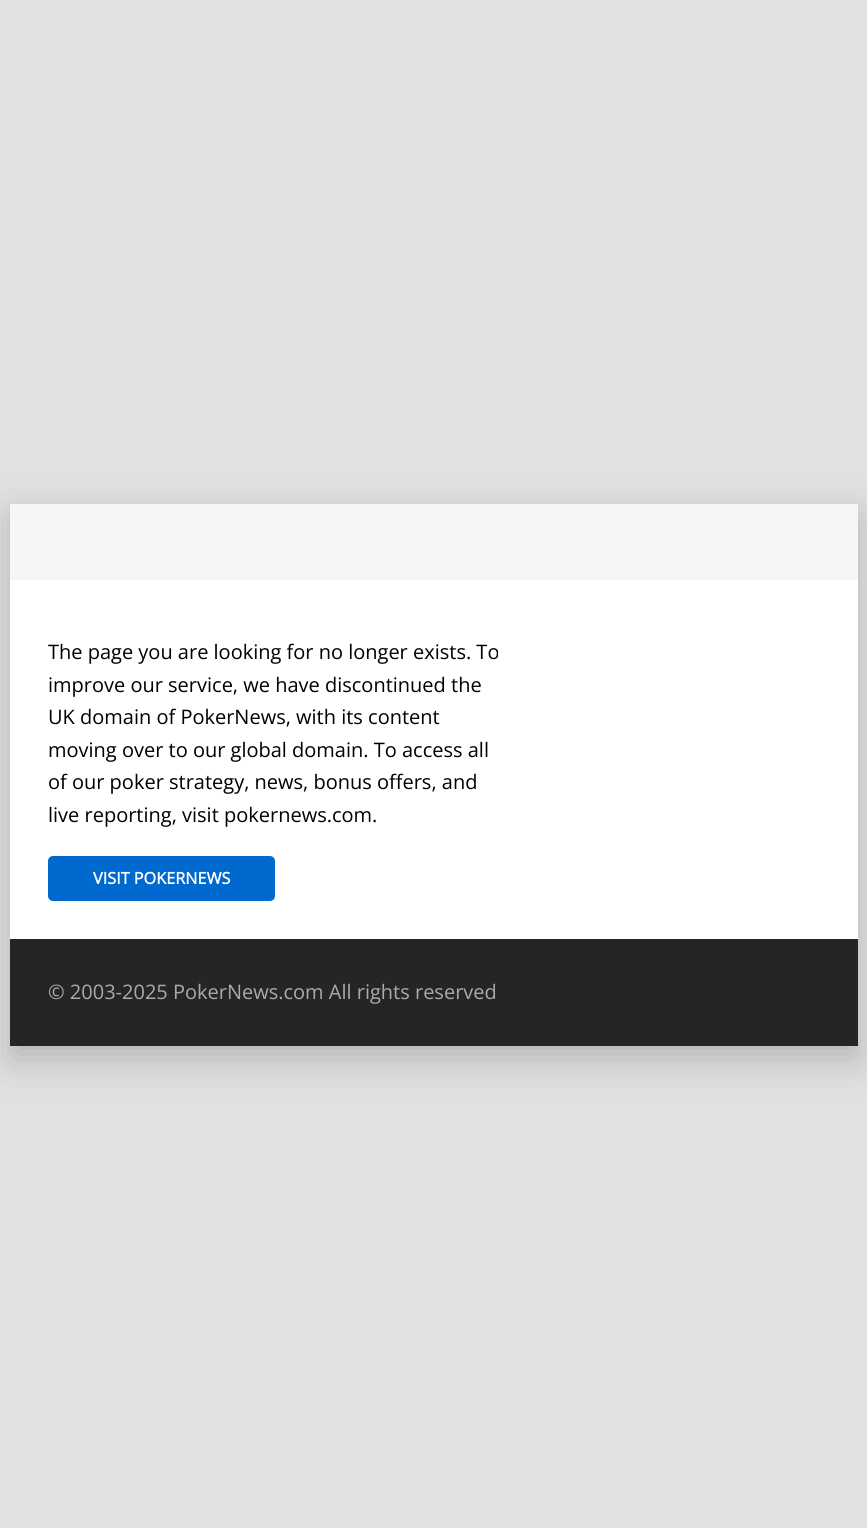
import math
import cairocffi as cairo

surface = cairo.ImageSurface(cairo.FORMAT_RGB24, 867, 1528)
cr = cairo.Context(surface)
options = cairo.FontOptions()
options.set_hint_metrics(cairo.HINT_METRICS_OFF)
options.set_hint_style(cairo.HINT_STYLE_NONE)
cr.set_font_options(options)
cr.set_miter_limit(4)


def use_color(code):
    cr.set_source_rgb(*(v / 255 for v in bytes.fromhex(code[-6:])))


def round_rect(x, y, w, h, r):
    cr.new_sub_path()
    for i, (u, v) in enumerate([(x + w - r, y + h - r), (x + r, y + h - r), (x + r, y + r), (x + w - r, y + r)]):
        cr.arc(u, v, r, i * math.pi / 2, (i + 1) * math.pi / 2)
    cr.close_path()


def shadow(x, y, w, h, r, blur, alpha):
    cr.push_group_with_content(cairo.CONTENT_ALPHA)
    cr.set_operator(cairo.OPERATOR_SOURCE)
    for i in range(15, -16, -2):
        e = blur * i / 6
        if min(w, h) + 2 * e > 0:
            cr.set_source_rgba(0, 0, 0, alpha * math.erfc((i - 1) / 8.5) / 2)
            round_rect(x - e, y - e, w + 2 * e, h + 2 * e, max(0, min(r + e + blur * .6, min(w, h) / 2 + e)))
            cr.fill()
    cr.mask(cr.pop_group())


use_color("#e1e1e1")
cr.paint()
use_color("#000000")
shadow(10, 516, 848, 543, 0, 19, 0.2)
use_color("#f6f6f6")
cr.new_path()
cr.move_to(10, 579)
cr.line_to(10, 580)
cr.line_to(858, 580)
cr.line_to(858, 505)
cr.line_to(858, 579)
cr.close_path()
cr.fill()
cr.rectangle(10, 504, 848, 75)
cr.fill()
use_color("#ffffff")
cr.rectangle(10, 580, 848, 359)
cr.fill()
cr.select_font_face("Open Sans")
cr.set_font_size(20)
use_color("#000000")
cr.move_to(48, 659)
cr.show_text("The page you are looking for no longer exists. To")
cr.move_to(48, 692)
cr.show_text("improve our service, we have discontinued the")
cr.move_to(48, 724)
cr.show_text("UK domain of PokerNews, with its content")
cr.move_to(48, 757)
cr.show_text("moving over to our global domain. To access all")
cr.move_to(48, 789)
cr.show_text("of our poker strategy, news, bonus offers, and")
cr.move_to(48, 822)
cr.show_text("live reporting, visit pokernews.com.")
use_color("#0069d0")
round_rect(48, 856, 227, 45, 5)
cr.fill()
cr.select_font_face("Open Sans", cairo.FONT_SLANT_NORMAL, cairo.FONT_WEIGHT_BOLD)
cr.set_font_size(16.25)
use_color("#ffffff")
cr.move_to(93, 884)
cr.show_text("VISIT POKERNEWS")
use_color("#252525")
cr.rectangle(10, 939, 848, 107)
cr.fill()
cr.select_font_face("Open Sans")
cr.set_font_size(20)
use_color("#aaaaaa")
cr.move_to(48, 999)
cr.show_text("© 2003-2025 PokerNews.com All rights reserved")
surface.write_to_png("result.png")
